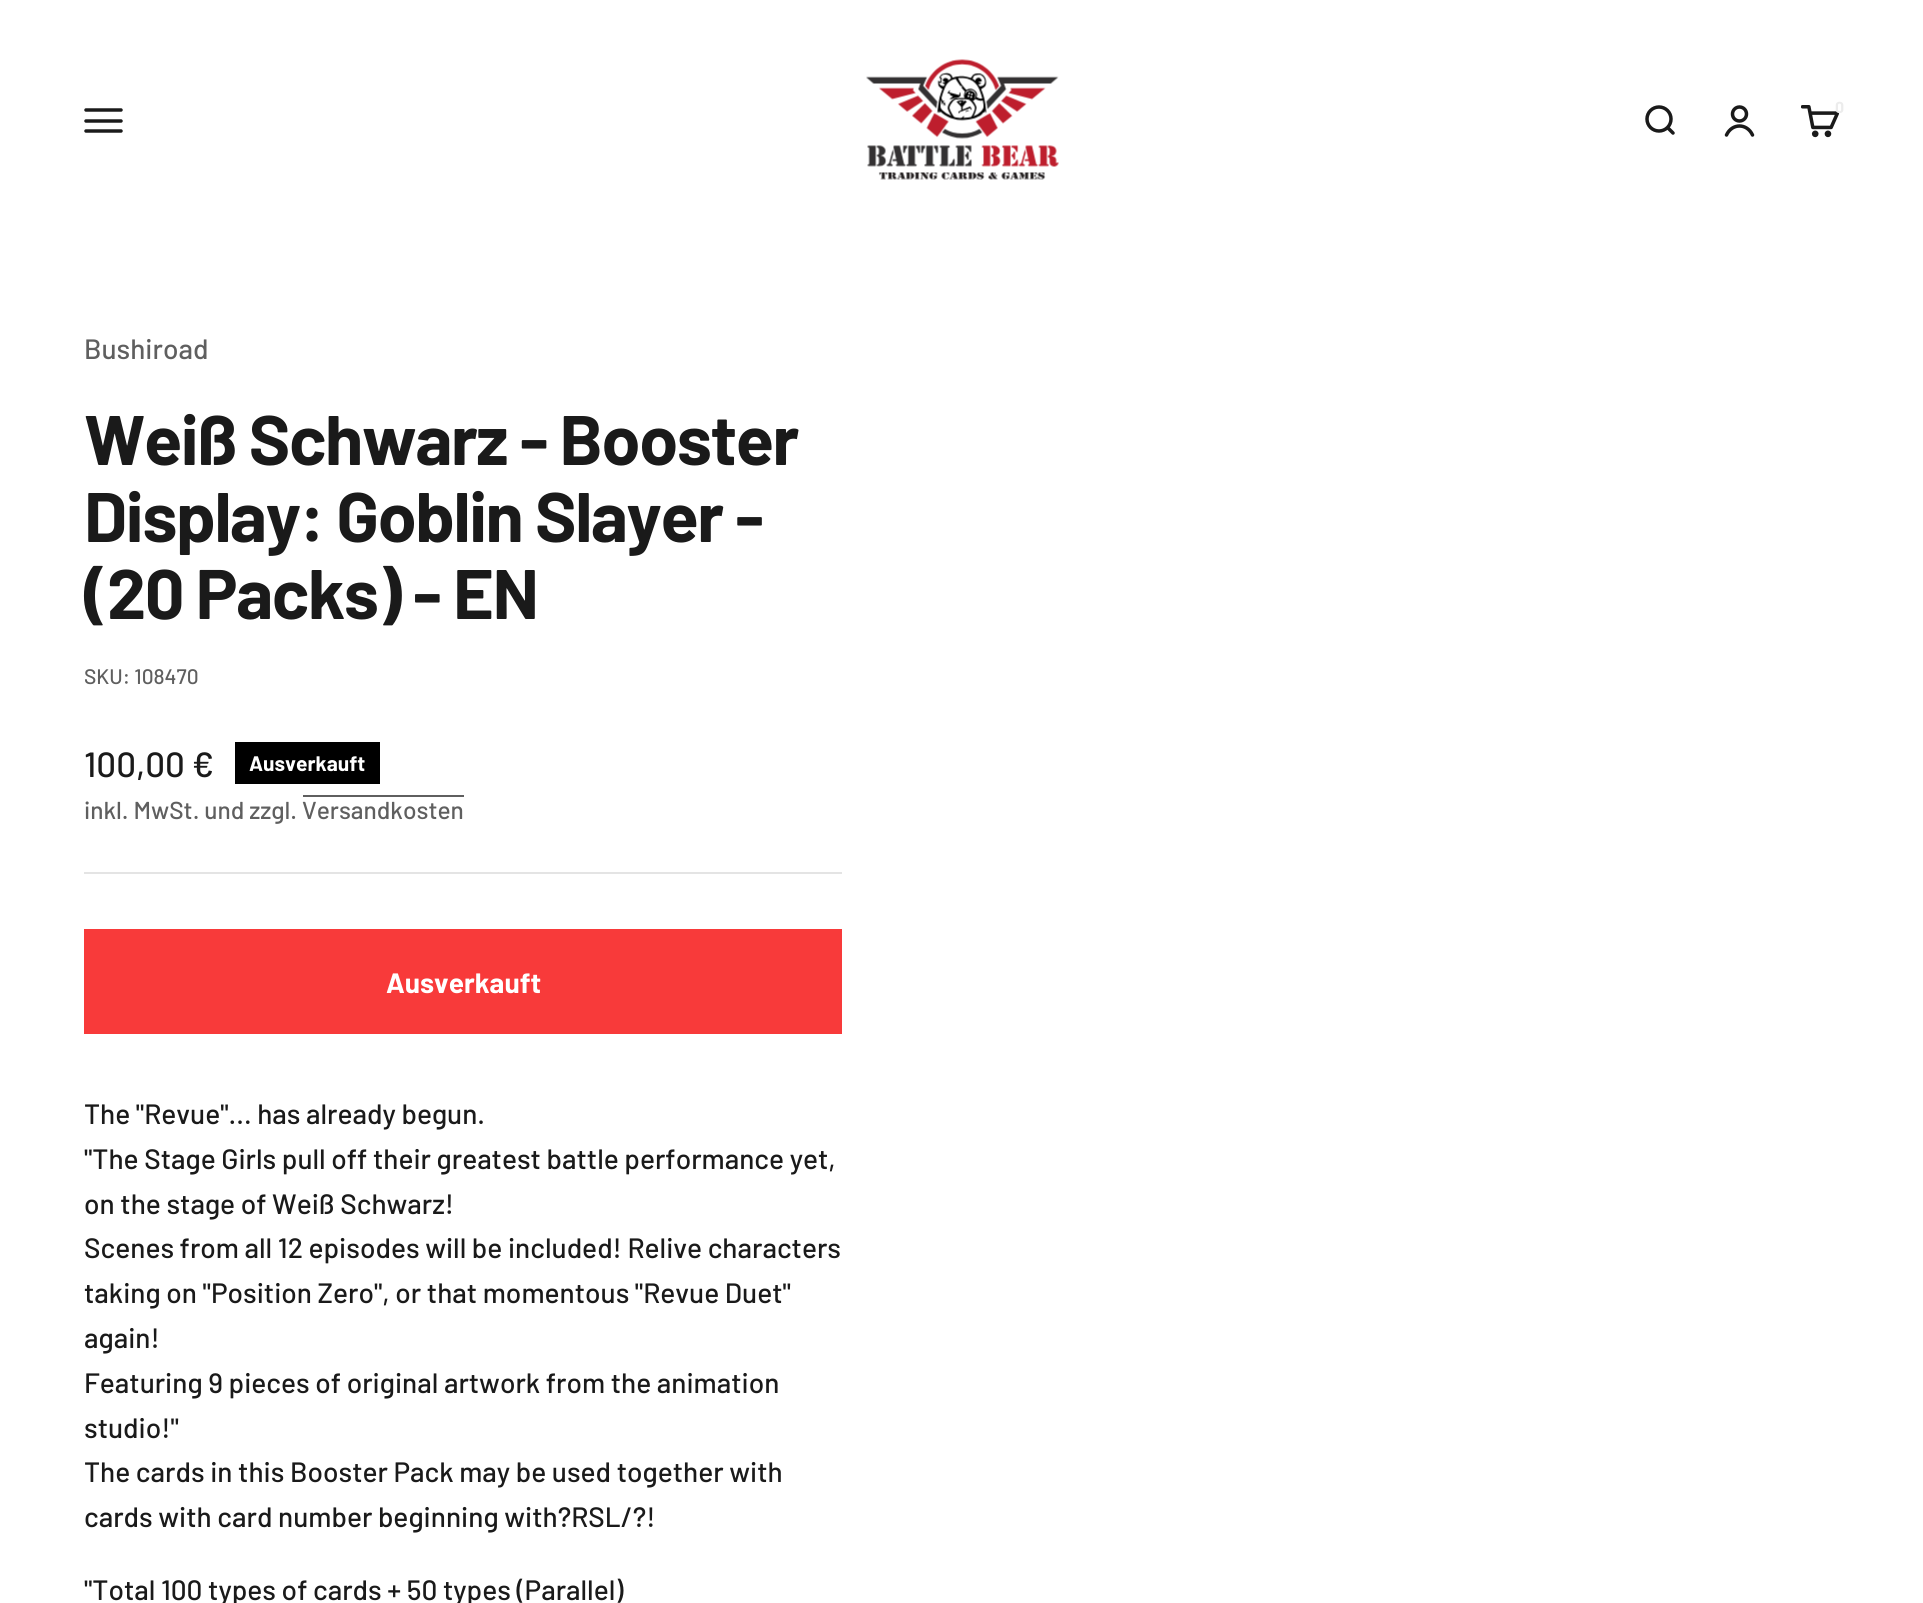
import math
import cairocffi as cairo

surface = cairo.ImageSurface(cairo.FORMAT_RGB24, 1923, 1603)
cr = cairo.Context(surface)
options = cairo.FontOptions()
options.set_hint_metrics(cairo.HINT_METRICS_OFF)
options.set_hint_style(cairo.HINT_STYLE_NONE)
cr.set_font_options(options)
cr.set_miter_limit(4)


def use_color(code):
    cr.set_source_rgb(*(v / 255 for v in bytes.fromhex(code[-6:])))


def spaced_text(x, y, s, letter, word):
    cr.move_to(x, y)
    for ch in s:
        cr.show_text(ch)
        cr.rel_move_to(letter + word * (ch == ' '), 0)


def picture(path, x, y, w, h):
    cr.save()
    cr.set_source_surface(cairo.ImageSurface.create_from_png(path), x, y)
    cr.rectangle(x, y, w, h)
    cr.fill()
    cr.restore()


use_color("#ffffff")
cr.paint()
cr.new_path()
cr.move_to(86, 110)
cr.line_to(121, 110)
cr.move_to(86, 121)
cr.line_to(121, 121)
cr.move_to(86, 131)
cr.line_to(121, 131)
use_color("#1a1a1a")
cr.set_line_width(3.5)
cr.set_line_cap(cairo.LINE_CAP_ROUND)
cr.stroke()
picture("img1.png", 866, 59, 193, 121)
cr.arc(1659, 119, 12, 0, 2 * math.pi)
cr.set_line_cap(cairo.LINE_CAP_BUTT)
cr.stroke()
cr.new_path()
cr.move_to(1668, 128)
cr.line_to(1673, 133)
cr.set_line_cap(cairo.LINE_CAP_ROUND)
cr.set_line_join(cairo.LINE_JOIN_ROUND)
cr.stroke()
cr.arc(1739.5, 114, 7, 0, 2 * math.pi)
cr.set_line_cap(cairo.LINE_CAP_BUTT)
cr.set_line_join(cairo.LINE_JOIN_MITER)
cr.stroke()
cr.new_path()
cr.move_to(1726.5, 135)
cr.curve_to(1732, 123, 1747, 123, 1752.5, 135)
cr.set_line_cap(cairo.LINE_CAP_ROUND)
cr.stroke()
picture("img2.png", 1801, 105, 38, 33)
cr.select_font_face("Barlow", cairo.FONT_SLANT_NORMAL, cairo.FONT_WEIGHT_BOLD)
cr.set_font_size(16)
use_color("#ececec")
cr.move_to(1835, 113)
cr.show_text("0")
cr.select_font_face("Barlow Medium")
cr.set_font_size(28)
use_color("#5f5f5f")
cr.move_to(84, 359)
cr.show_text("Bushiroad")
cr.select_font_face("Barlow", cairo.FONT_SLANT_NORMAL, cairo.FONT_WEIGHT_BOLD)
cr.set_font_size(70)
use_color("#1a1a1a")
spaced_text(84, 465, "Weiß Schwarz - Booster", -1.4, 0)
spaced_text(84, 542, "Display: Goblin Slayer -", -1.4, 0)
spaced_text(84, 619, "(20 Packs) - EN", -1.4, 0)
cr.select_font_face("Barlow Medium")
cr.set_font_size(21)
use_color("#5f5f5f")
cr.move_to(84, 684)
cr.show_text("SKU: 108470")
cr.set_font_size(35)
use_color("#1a1a1a")
cr.move_to(84, 777)
cr.show_text("100,00 €")
use_color("#000000")
cr.rectangle(235, 742, 145, 42)
cr.fill()
cr.select_font_face("Barlow", cairo.FONT_SLANT_NORMAL, cairo.FONT_WEIGHT_BOLD)
cr.set_font_size(21)
use_color("#ffffff")
cr.move_to(249, 771)
cr.show_text("Ausverkauft")
use_color("#5f5f5f")
cr.rectangle(303, 795, 161, 2)
cr.fill()
cr.select_font_face("Barlow Medium")
cr.set_font_size(24.5)
cr.move_to(84, 819)
cr.show_text("inkl. MwSt. und zzgl. Versandkosten")
use_color("#e4e4e4")
cr.rectangle(84, 872, 758, 2)
cr.fill()
use_color("#f83a3a")
cr.rectangle(84, 929, 758, 105)
cr.fill()
cr.select_font_face("Barlow", cairo.FONT_SLANT_NORMAL, cairo.FONT_WEIGHT_BOLD)
cr.set_font_size(28)
use_color("#ffffff")
cr.move_to(386, 993)
cr.show_text("Ausverkauft")
cr.select_font_face("Barlow Medium")
use_color("#1a1a1a")
cr.move_to(84, 1124)
cr.show_text("The \"Revue\"... has already begun.")
cr.move_to(84, 1169)
cr.show_text("\"The Stage Girls pull off their greatest battle performance yet,")
cr.move_to(84, 1214)
cr.show_text("on the stage of Weiß Schwarz!")
cr.move_to(84, 1258)
cr.show_text("Scenes from all 12 episodes will be included! Relive characters")
cr.move_to(84, 1303)
cr.show_text("taking on \"Position Zero\", or that momentous \"Revue Duet\"")
cr.move_to(84, 1348)
cr.show_text("again!")
cr.move_to(84, 1393)
cr.show_text("Featuring 9 pieces of original artwork from the animation")
cr.move_to(84, 1438)
cr.show_text("studio!\"")
cr.move_to(84, 1482)
cr.show_text("The cards in this Booster Pack may be used together with")
cr.move_to(84, 1527)
cr.show_text("cards with card number beginning with?RSL/?!")
cr.move_to(84, 1600)
cr.show_text("\"Total 100 types of cards + 50 types (Parallel)")
surface.write_to_png("result.png")
